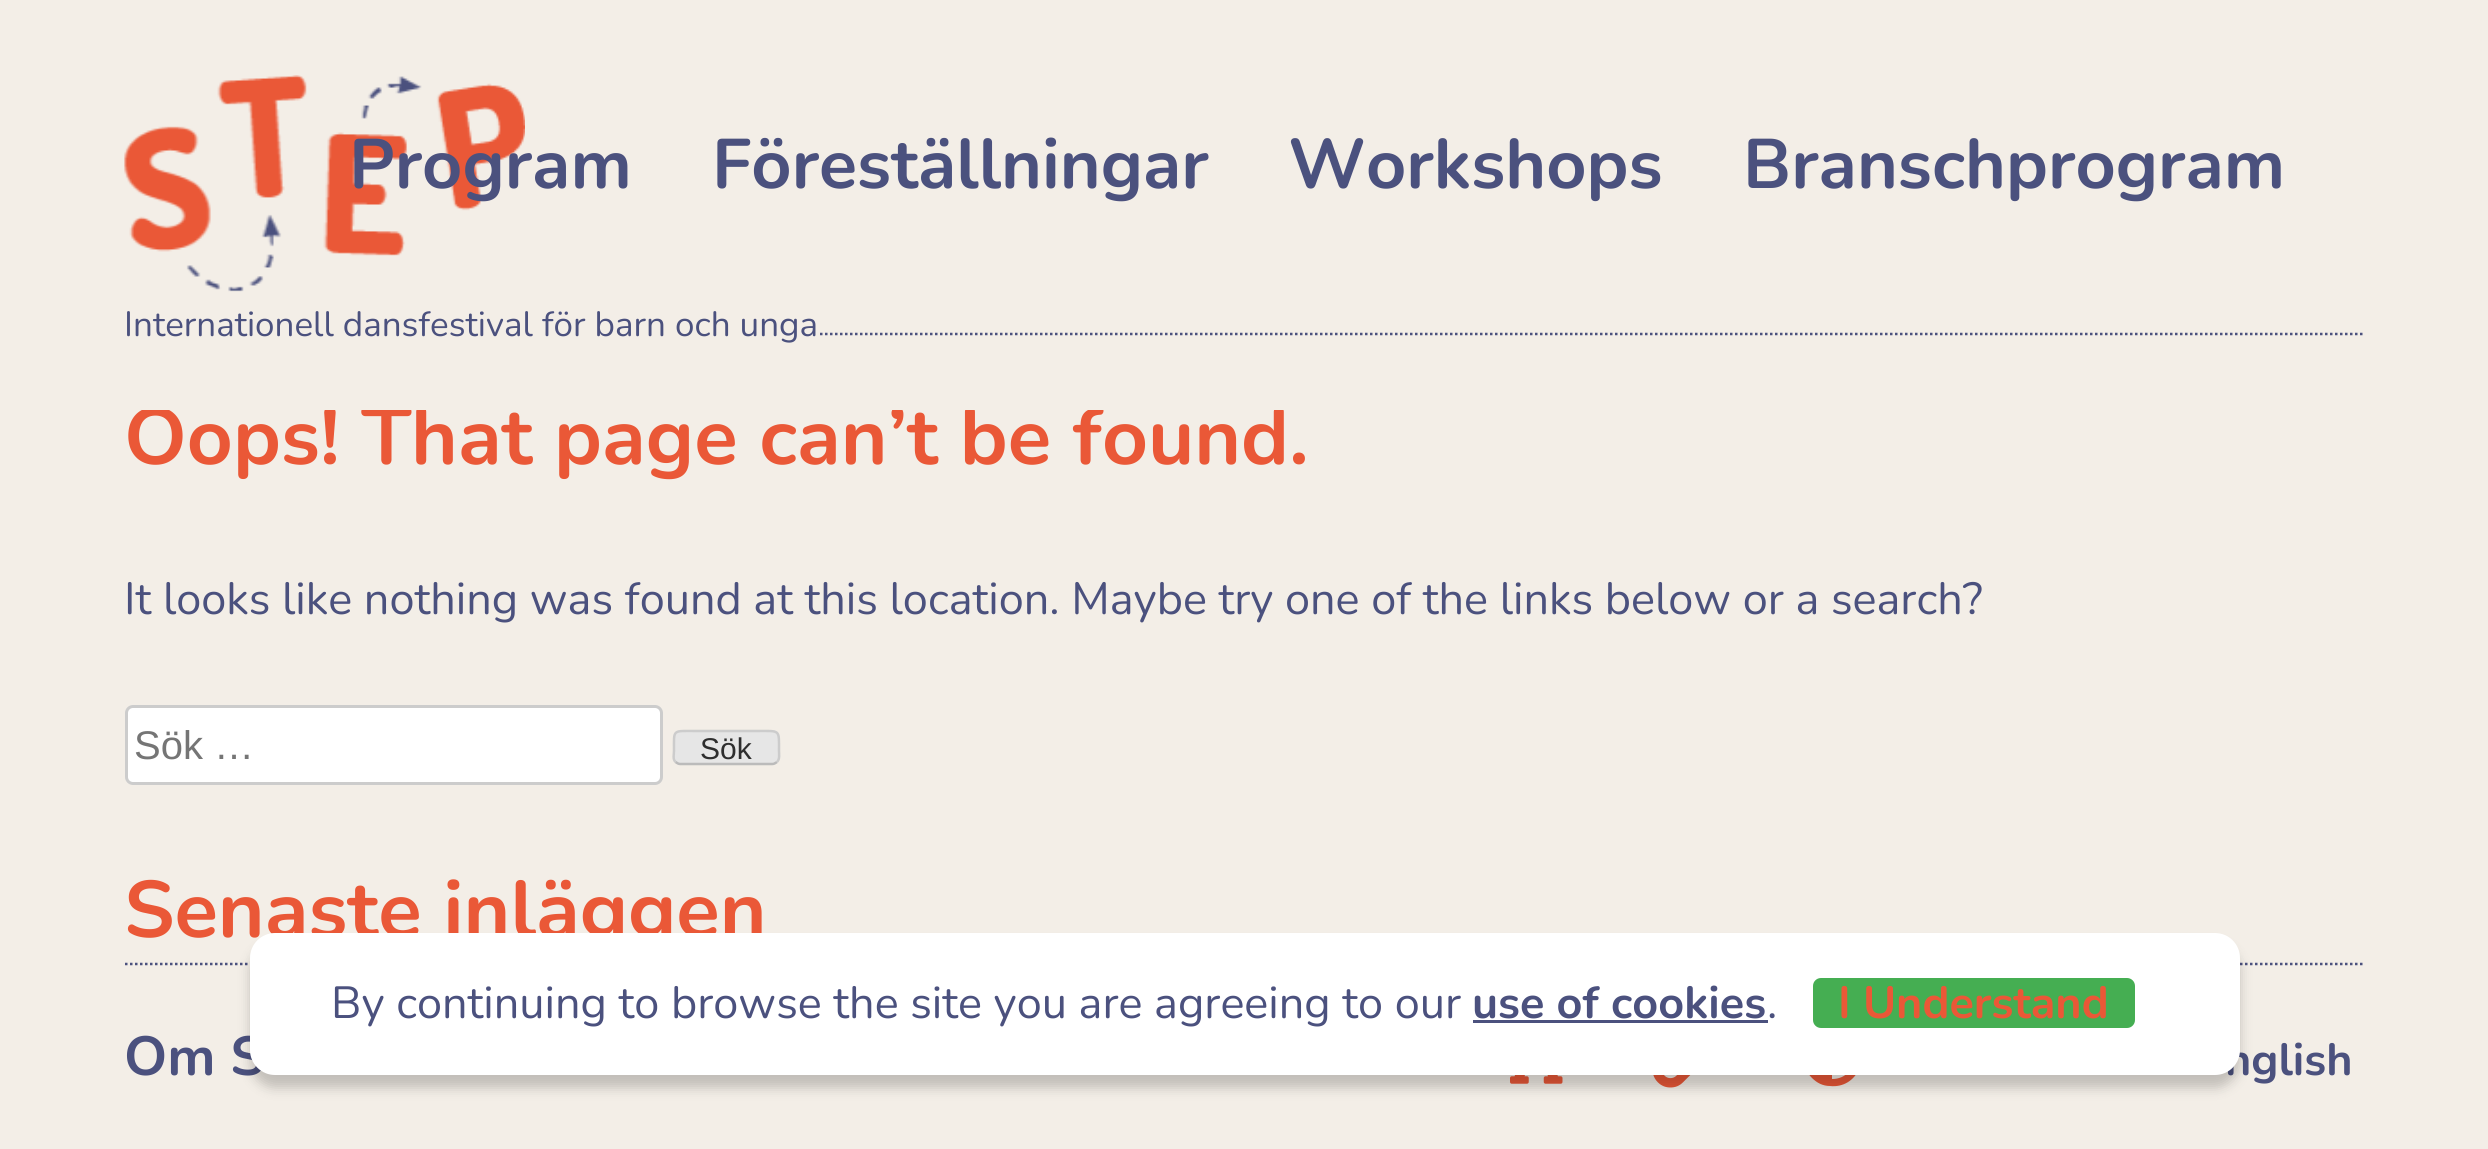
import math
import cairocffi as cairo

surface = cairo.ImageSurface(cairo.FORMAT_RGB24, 2488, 1149)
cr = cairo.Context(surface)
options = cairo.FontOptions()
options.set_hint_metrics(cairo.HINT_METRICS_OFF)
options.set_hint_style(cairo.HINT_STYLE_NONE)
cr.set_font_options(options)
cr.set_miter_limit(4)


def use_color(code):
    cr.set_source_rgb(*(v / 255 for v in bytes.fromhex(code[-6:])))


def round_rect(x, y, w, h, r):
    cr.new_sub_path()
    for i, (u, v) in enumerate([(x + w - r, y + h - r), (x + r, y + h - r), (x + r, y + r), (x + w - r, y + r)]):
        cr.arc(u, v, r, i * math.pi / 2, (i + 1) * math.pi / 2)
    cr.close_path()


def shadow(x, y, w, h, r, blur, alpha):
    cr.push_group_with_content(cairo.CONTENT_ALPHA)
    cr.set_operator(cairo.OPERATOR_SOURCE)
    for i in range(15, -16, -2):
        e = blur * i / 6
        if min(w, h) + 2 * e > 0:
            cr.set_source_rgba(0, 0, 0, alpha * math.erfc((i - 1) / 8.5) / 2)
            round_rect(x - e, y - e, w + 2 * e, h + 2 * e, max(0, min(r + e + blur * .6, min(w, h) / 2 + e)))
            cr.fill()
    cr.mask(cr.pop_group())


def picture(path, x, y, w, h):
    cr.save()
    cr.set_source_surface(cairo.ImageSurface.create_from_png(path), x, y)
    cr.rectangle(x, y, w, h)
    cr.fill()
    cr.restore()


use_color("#f3eee7")
cr.paint()
cr.select_font_face("Nunito", cairo.FONT_SLANT_NORMAL, cairo.FONT_WEIGHT_BOLD)
cr.set_font_size(80)
use_color("#ea5837")
cr.move_to(124, 464)
cr.show_text("Oops! That page can’t be found.")
use_color("#f3eee7")
cr.rectangle(142, 406, 1143, 4)
cr.fill()
picture("img1.png", 124, 75, 401, 217)
cr.set_font_size(70)
use_color("#4b517e")
cr.move_to(349, 188)
cr.show_text("Program")
cr.move_to(712, 188)
cr.show_text("Föreställningar")
cr.move_to(1288, 188)
cr.show_text("Workshops")
cr.move_to(1743, 188)
cr.show_text("Branschprogram")
cr.new_path()
cr.move_to(125, 334)
cr.line_to(2365, 334)
cr.set_line_width(2.5)
cr.set_dash([2.5, 2.5])
cr.stroke()
use_color("#f3eee7")
cr.rectangle(125, 332, 693, 4)
cr.fill()
cr.select_font_face("Nunito")
cr.set_font_size(35)
use_color("#4b517e")
cr.move_to(124, 336)
cr.show_text("Internationell dansfestival för barn och unga")
cr.new_path()
cr.move_to(125, 964)
cr.line_to(2365, 964)
cr.stroke()
cr.select_font_face("Nunito", cairo.FONT_SLANT_NORMAL, cairo.FONT_WEIGHT_BOLD)
cr.set_font_size(55)
cr.move_to(124, 1075)
cr.show_text("Om S")
picture("img2.png", 1510, 1075, 53, 9)
picture("img3.png", 1653, 1075, 38, 13)
use_color("#ea5837")
cr.new_path()
cr.move_to(1812, 1078)
cr.curve_to(1807, 1073, 1804, 1067, 1804, 1060)
cr.curve_to(1801, 1033, 1834, 1018, 1853, 1037)
cr.curve_to(1872, 1056, 1857, 1089, 1830, 1086)
cr.curve_to(1823, 1086, 1817, 1083, 1812, 1078)
cr.close_path()
cr.move_to(1832, 1079)
cr.curve_to(1861, 1079, 1861, 1036, 1832, 1036)
cr.close_path()
cr.fill()
cr.set_font_size(45)
use_color("#4b517e")
cr.move_to(2225, 1075)
cr.show_text("nglish")
cr.select_font_face("Nunito")
cr.move_to(124, 614)
cr.show_text("It looks like nothing was found at this location. Maybe try one of the links below or a search?")
use_color("#ffffff")
round_rect(126.5, 706.5, 535, 77, 6.5)
cr.fill_preserve()
use_color("#cccccc")
cr.set_line_width(3)
cr.set_dash([])
cr.stroke()
cr.select_font_face("Liberation Sans")
cr.set_font_size(40)
use_color("#757575")
cr.move_to(134, 759)
cr.show_text("Sök …")
use_color("#e6e6e6")
round_rect(673, 730, 107, 35, 8)
cr.fill()
cr.new_path()
cr.move_to(777, 762)
cr.curve_to(775.5, 763, 774, 764, 772.5, 764)
cr.line_to(680, 764)
cr.curve_to(678.5, 764, 677, 763, 675.5, 762)
use_color("#bbbbbb")
cr.set_line_width(2.5)
cr.stroke()
cr.new_path()
cr.move_to(675.5, 762)
cr.curve_to(672.5, 759, 674, 754.5, 674, 751)
cr.curve_to(674, 729, 672, 731, 695.5, 731)
cr.line_to(757, 731)
cr.curve_to(780.5, 731, 779, 729, 779, 751)
cr.curve_to(779, 754.5, 780, 759, 777, 762)
use_color("#cccccc")
cr.stroke()
cr.set_font_size(30)
use_color("#2e2e2e")
cr.move_to(700, 759)
cr.show_text("Sök")
cr.select_font_face("Nunito", cairo.FONT_SLANT_NORMAL, cairo.FONT_WEIGHT_BOLD)
cr.set_font_size(80)
use_color("#ea5837")
cr.move_to(124, 937)
cr.show_text("Senaste inläggen")
use_color("#000000")
shadow(250, 945, 1990, 143, 25, 6, 0.2)
use_color("#ffffff")
round_rect(250, 933, 1990, 142, 25)
cr.fill()
cr.select_font_face("Nunito")
cr.set_font_size(45)
use_color("#4b517e")
cr.move_to(331, 1018)
cr.show_text("By continuing to browse the site you are agreeing to our")
cr.select_font_face("Nunito", cairo.FONT_SLANT_NORMAL, cairo.FONT_WEIGHT_BOLD)
cr.move_to(1472, 1018)
cr.show_text("use of cookies")
cr.rectangle(1473, 1020, 295, 3)
cr.fill()
cr.select_font_face("Nunito")
cr.move_to(1767, 1018)
cr.show_text(".")
use_color("#45ae52")
round_rect(1813, 978, 322, 50, 8)
cr.fill()
cr.select_font_face("Nunito", cairo.FONT_SLANT_NORMAL, cairo.FONT_WEIGHT_BOLD)
use_color("#ea5837")
cr.move_to(1838, 1018)
cr.show_text("I Understand")
surface.write_to_png("result.png")
